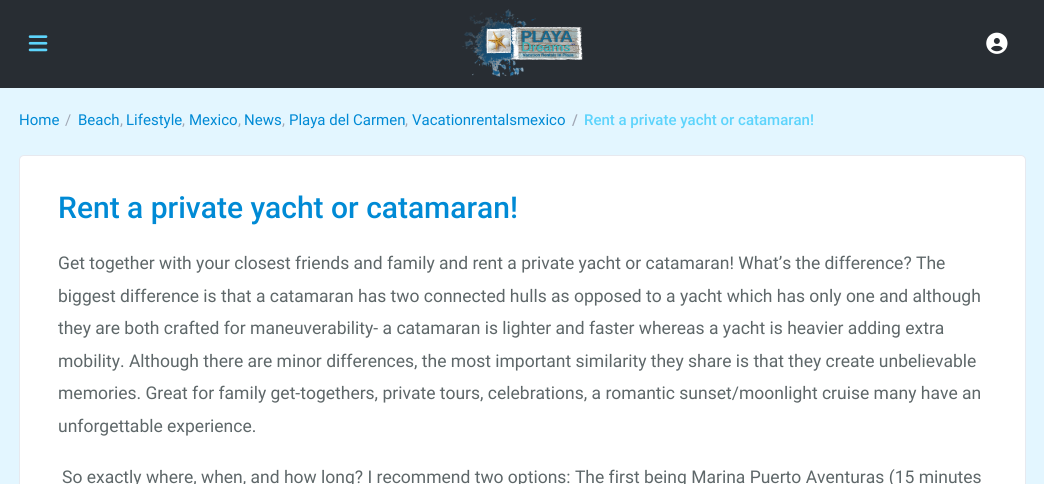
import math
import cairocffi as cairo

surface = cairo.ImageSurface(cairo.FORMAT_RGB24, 1044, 484)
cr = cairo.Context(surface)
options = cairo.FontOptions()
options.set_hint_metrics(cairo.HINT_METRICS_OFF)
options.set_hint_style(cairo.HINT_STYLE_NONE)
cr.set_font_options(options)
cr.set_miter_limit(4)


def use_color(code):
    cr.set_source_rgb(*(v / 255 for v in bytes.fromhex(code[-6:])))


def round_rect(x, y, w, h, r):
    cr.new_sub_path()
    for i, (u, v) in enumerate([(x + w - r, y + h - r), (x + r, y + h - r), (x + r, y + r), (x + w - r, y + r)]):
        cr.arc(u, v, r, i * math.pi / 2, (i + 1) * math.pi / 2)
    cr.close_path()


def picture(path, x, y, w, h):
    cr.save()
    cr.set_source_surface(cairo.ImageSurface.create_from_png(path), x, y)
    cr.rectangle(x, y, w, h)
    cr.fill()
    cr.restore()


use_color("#e3f6ff")
cr.paint()
use_color("#282d33")
cr.rectangle(0, 0, 1044, 88)
cr.fill()
picture("img1.png", 28, 35, 20, 17)
picture("img2.png", 462, 9, 121, 68)
picture("img3.png", 986, 32, 22, 22)
cr.select_font_face("Roboto")
cr.set_font_size(15)
use_color("#008ad5")
cr.move_to(19, 125)
cr.show_text("Home")
use_color("#a1a7b4")
cr.move_to(65, 125)
cr.show_text("/")
use_color("#008ad5")
cr.move_to(78, 125)
cr.show_text("Beach")
use_color("#a1a7b4")
cr.move_to(120, 125)
cr.show_text(",")
use_color("#008ad5")
cr.move_to(126, 125)
cr.show_text("Lifestyle")
use_color("#a1a7b4")
cr.move_to(182, 125)
cr.show_text(",")
use_color("#008ad5")
cr.move_to(189, 125)
cr.show_text("Mexico")
use_color("#a1a7b4")
cr.move_to(238, 125)
cr.show_text(",")
use_color("#008ad5")
cr.move_to(244, 125)
cr.show_text("News")
use_color("#a1a7b4")
cr.move_to(282, 125)
cr.show_text(",")
use_color("#008ad5")
cr.move_to(289, 125)
cr.show_text("Playa del Carmen")
use_color("#a1a7b4")
cr.move_to(405, 125)
cr.show_text(",")
use_color("#008ad5")
cr.move_to(412, 125)
cr.show_text("Vacationrentalsmexico")
cr.select_font_face("Roboto Medium")
use_color("#a1a7b4")
cr.move_to(572, 125)
cr.show_text("/")
use_color("#5dd4fc")
cr.move_to(584, 125)
cr.show_text("Rent a private yacht or catamaran!")
use_color("#ffffff")
round_rect(19.5, 155.5, 1006, 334, 4.5)
cr.fill_preserve()
use_color("#e7e9ef")
cr.set_line_width(1)
cr.stroke()
cr.set_font_size(30)
use_color("#008ad5")
cr.move_to(58, 218)
cr.show_text("Rent a private yacht or catamaran!")
cr.select_font_face("Roboto")
cr.set_font_size(17.5)
use_color("#5e6769")
cr.move_to(58, 269)
cr.show_text("Get together with your closest friends and family and rent a private yacht or catamaran! What’s the difference? The")
cr.move_to(58, 302)
cr.show_text("biggest difference is that a catamaran has two connected hulls as opposed to a yacht which has only one and although")
cr.move_to(58, 334)
cr.show_text("they are both crafted for maneuverability- a catamaran is lighter and faster whereas a yacht is heavier adding extra")
cr.move_to(58, 367)
cr.show_text("mobility. Although there are minor differences, the most important similarity they share is that they create unbelievable")
cr.move_to(58, 399)
cr.show_text("memories. Great for family get-togethers, private tours, celebrations, a romantic sunset/moonlight cruise many have an")
cr.move_to(58, 432)
cr.show_text("unforgettable experience.")
cr.move_to(62, 483)
cr.show_text("So exactly where, when, and how long? I recommend two options: The first being Marina Puerto Aventuras (15 minutes")
surface.write_to_png("result.png")
